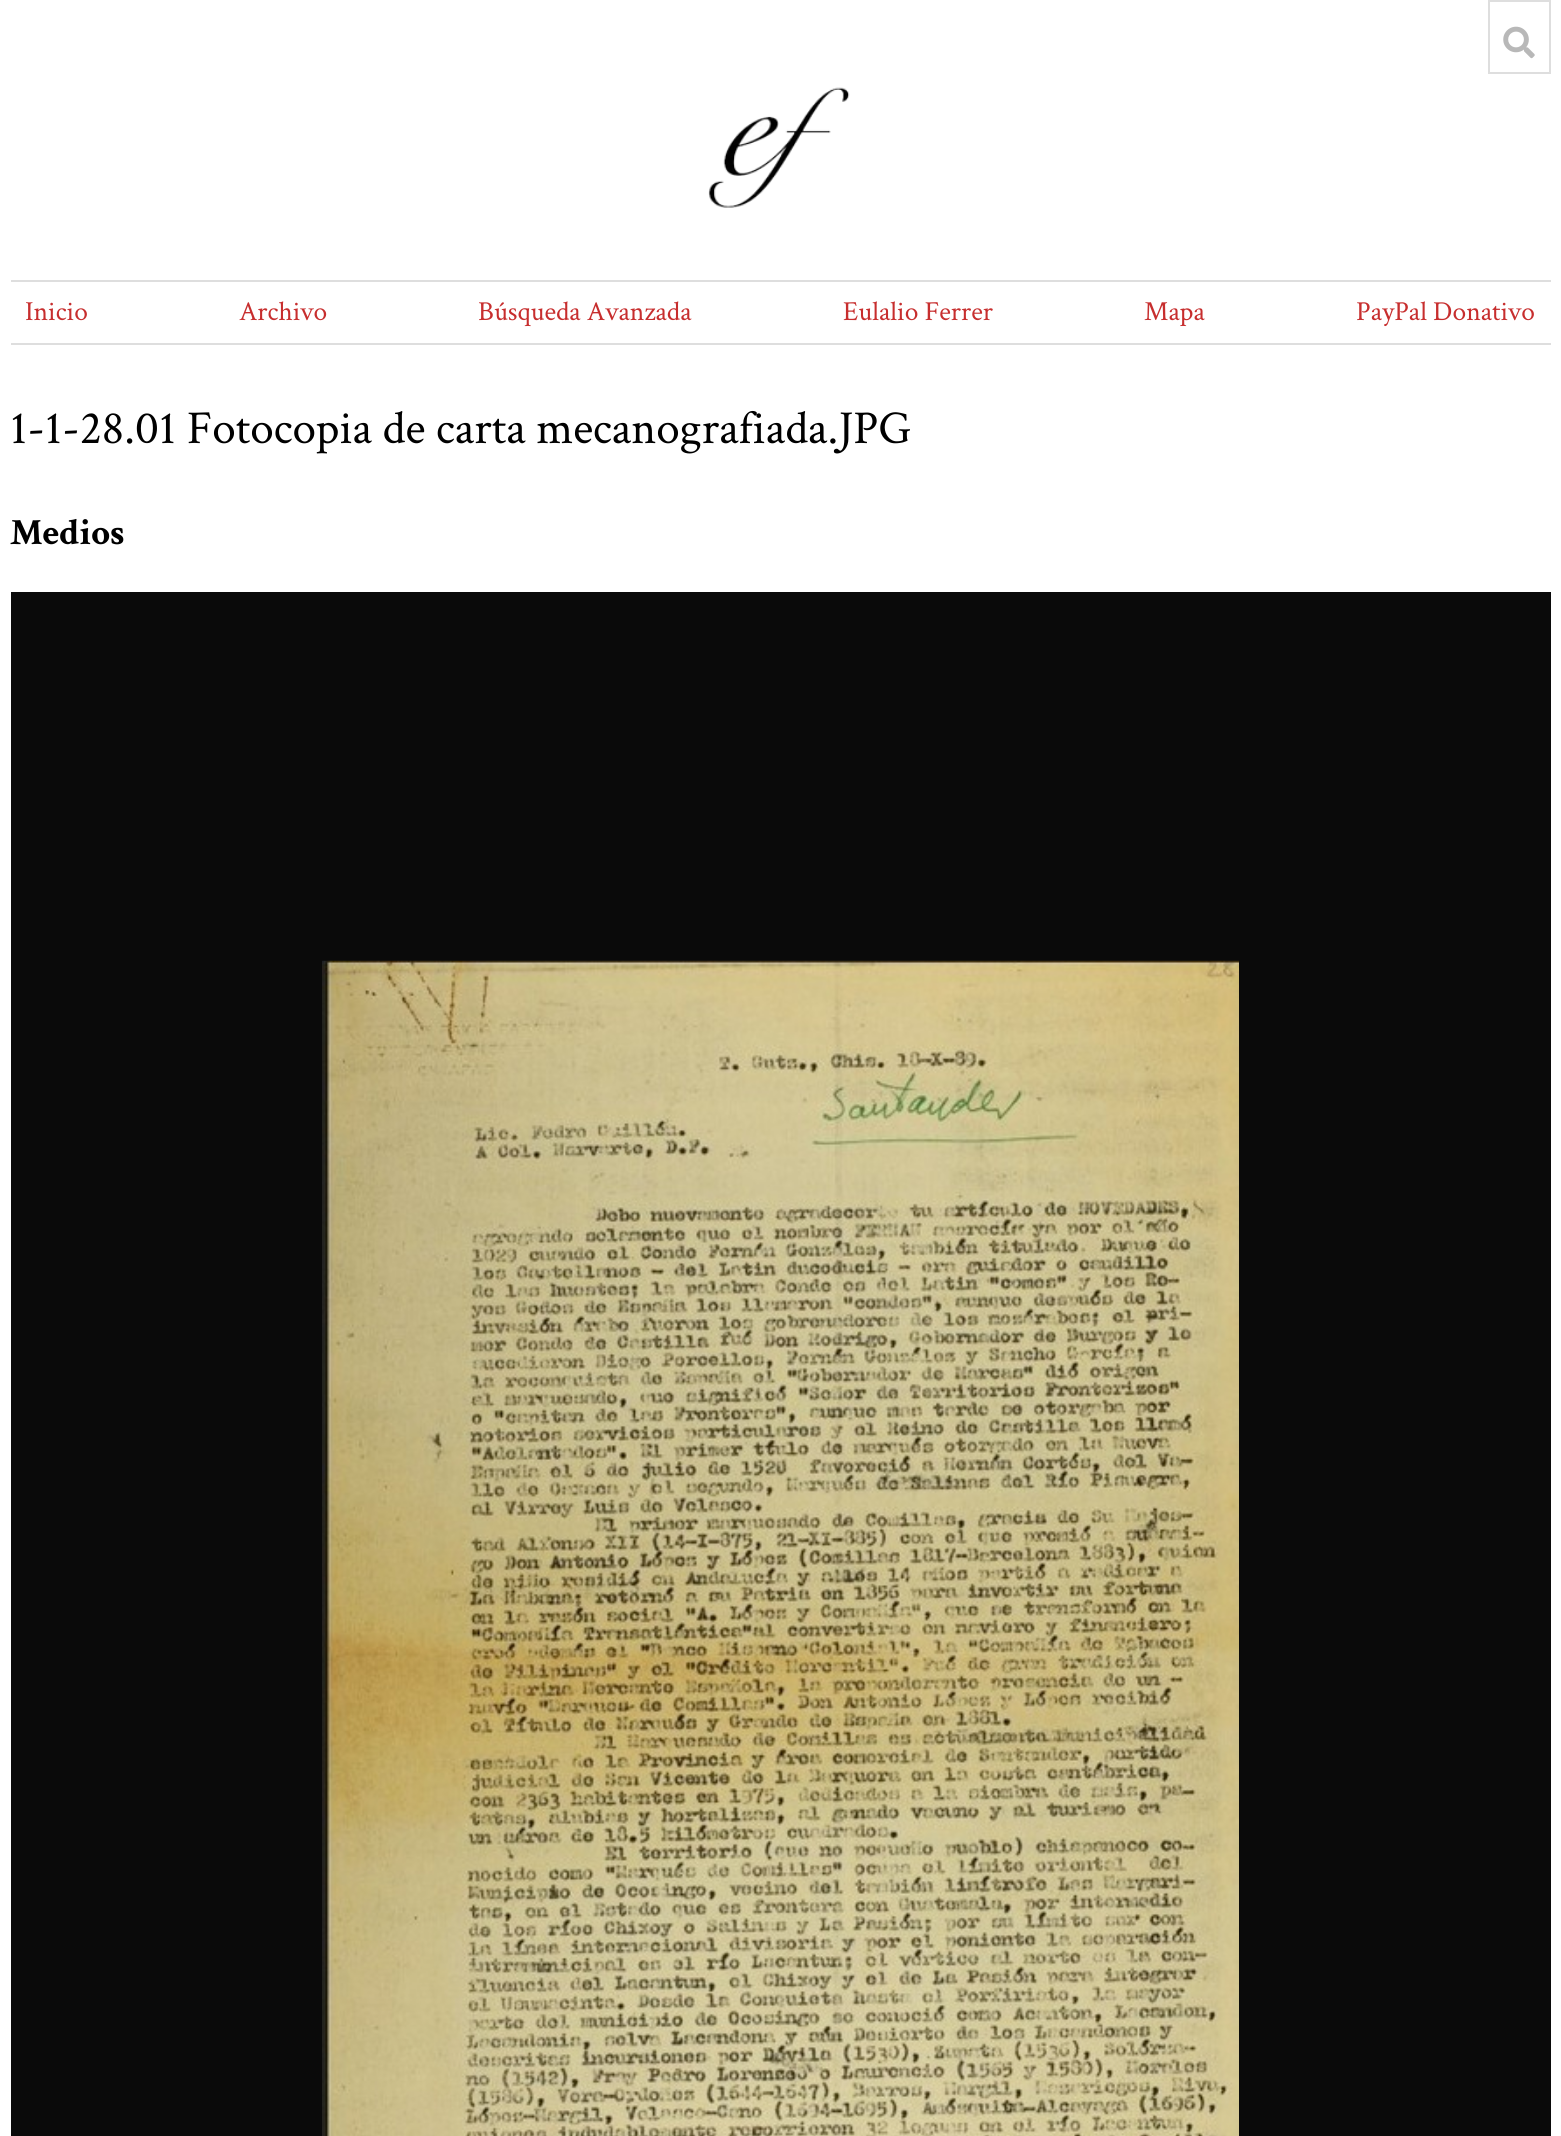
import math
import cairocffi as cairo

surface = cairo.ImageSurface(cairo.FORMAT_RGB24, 1561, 2136)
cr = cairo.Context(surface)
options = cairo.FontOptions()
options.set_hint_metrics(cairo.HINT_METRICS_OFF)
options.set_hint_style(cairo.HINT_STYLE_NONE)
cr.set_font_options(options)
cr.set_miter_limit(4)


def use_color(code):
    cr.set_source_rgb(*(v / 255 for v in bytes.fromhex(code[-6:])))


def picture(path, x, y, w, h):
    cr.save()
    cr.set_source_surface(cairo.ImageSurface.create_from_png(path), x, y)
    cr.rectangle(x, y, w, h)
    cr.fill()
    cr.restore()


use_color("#ffffff")
cr.paint()
cr.rectangle(1489, 1, 61, 72)
use_color("#dedede")
cr.stroke()
picture("img1.png", 1503, 26, 32, 33)
picture("img2.png", 708, 87, 142, 121)
cr.rectangle(11, 280, 1540, 2)
cr.fill()
cr.rectangle(11, 343, 1540, 2)
cr.fill()
cr.select_font_face("Crimson Text")
cr.set_font_size(27.5)
use_color("#c72e2e")
cr.move_to(25, 320)
cr.show_text("Inicio")
cr.move_to(239, 320)
cr.show_text("Archivo")
cr.move_to(478, 320)
cr.show_text("Búsqueda Avanzada")
cr.move_to(843, 320)
cr.show_text("Eulalio Ferrer")
cr.move_to(1144, 320)
cr.show_text("Mapa")
cr.move_to(1356, 320)
cr.show_text("PayPal Donativo")
cr.set_font_size(47.25)
use_color("#000000")
cr.move_to(10, 443)
cr.show_text("1-1-28.01 Fotocopia de carta mecanografiada.JPG")
cr.select_font_face("Crimson Text", cairo.FONT_SLANT_NORMAL, cairo.FONT_WEIGHT_BOLD)
cr.set_font_size(37)
cr.move_to(10, 544)
cr.show_text("Medios")
use_color("#0a0a0a")
cr.rectangle(11, 592, 1540, 1544)
cr.fill()
picture("img3.png", 322, 960, 917, 1176)
surface.write_to_png("result.png")
